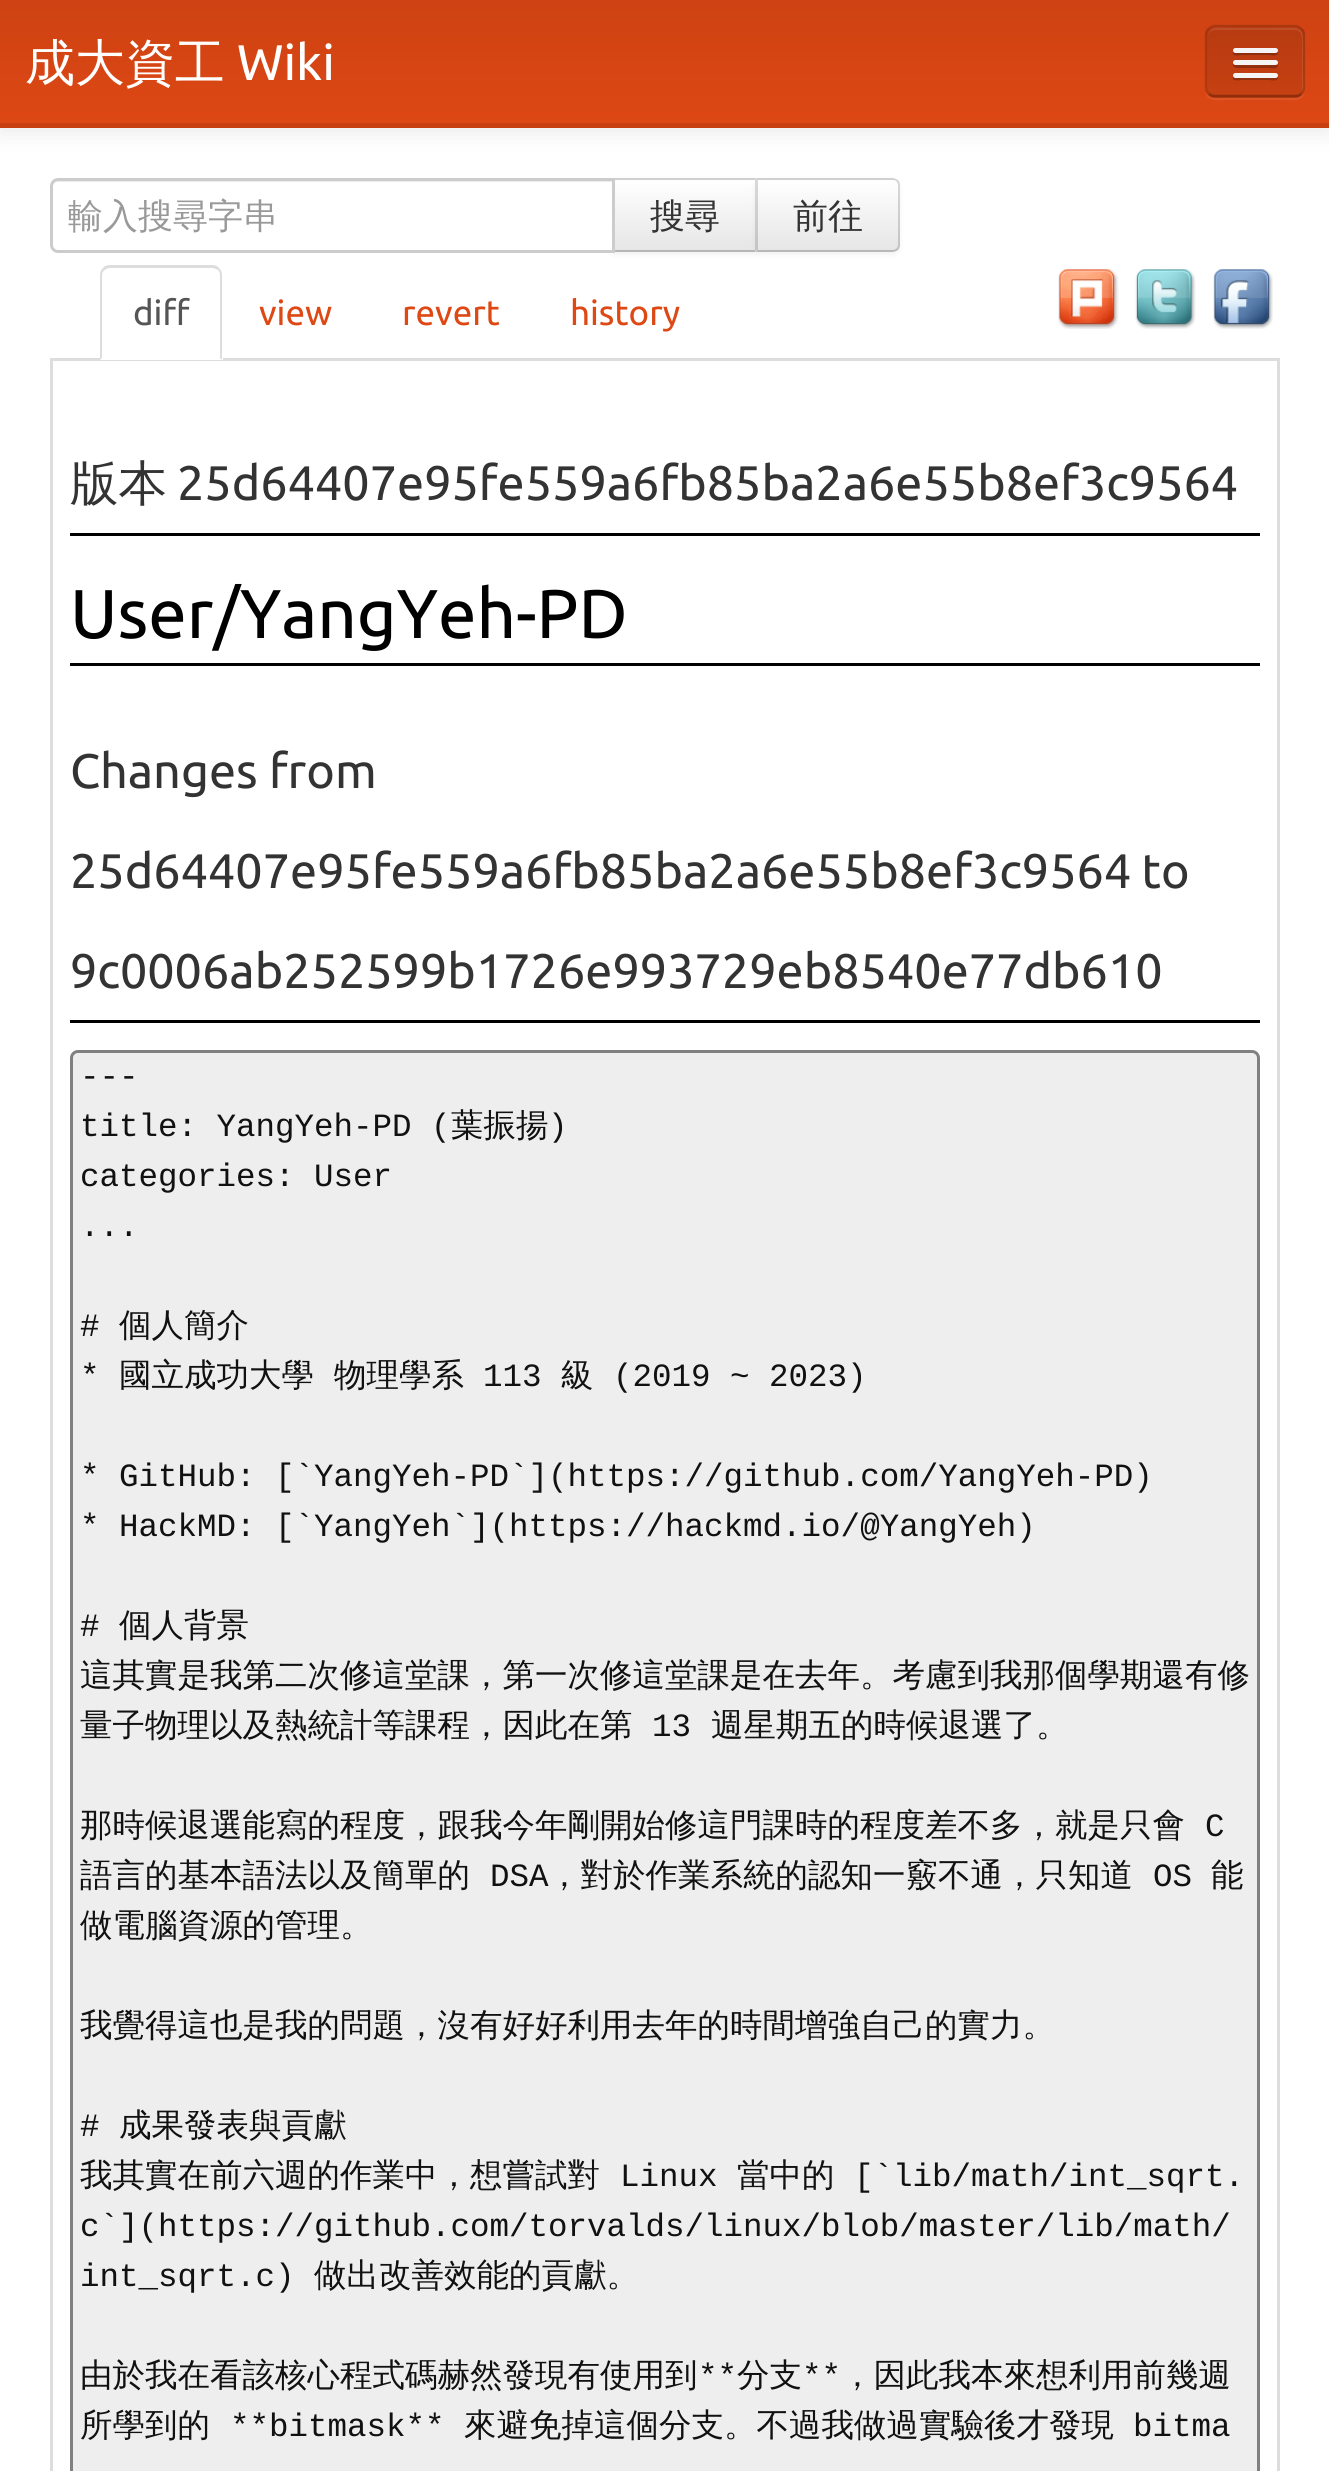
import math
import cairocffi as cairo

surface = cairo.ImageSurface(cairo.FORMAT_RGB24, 1329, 2471)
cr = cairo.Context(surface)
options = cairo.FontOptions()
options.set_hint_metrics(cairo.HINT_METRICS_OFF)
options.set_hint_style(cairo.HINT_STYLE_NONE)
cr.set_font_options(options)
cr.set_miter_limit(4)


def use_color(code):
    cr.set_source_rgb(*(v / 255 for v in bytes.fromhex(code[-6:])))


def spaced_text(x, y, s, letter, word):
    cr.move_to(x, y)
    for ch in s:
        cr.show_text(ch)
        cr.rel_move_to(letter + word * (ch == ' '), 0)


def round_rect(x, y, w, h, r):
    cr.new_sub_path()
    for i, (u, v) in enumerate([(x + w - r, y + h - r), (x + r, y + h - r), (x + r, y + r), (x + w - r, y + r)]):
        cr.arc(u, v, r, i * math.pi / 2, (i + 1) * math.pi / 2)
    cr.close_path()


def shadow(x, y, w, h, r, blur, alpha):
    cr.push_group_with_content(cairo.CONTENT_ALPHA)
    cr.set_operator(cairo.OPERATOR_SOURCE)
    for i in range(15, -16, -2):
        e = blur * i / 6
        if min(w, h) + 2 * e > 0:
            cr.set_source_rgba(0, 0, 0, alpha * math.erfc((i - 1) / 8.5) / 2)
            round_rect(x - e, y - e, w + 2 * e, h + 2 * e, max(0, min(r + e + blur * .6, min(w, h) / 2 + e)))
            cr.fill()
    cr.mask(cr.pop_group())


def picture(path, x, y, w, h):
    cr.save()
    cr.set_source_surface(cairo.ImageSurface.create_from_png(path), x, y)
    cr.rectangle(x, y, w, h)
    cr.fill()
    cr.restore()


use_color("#ffffff")
cr.paint()
use_color("#000000")
shadow(0, 3, 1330, 127, 0, 12.5, 0.1)
gradient = cairo.LinearGradient(665, 0, 665, 125)
gradient.add_color_stop_rgba(0, 0.808, 0.259, 0.075, 1)
gradient.add_color_stop_rgba(1, 0.867, 0.282, 0.078, 1)
cr.set_source(gradient)
cr.rectangle(0, 0, 1329, 123)
cr.fill()
gradient = cairo.LinearGradient(665, 0, 665, 125)
gradient.add_color_stop_rgba(0, 0.725, 0.231, 0.067, 1)
gradient.add_color_stop_rgba(1, 0.78, 0.255, 0.071, 1)
cr.set_source(gradient)
cr.rectangle(0, 123, 1329, 2)
cr.fill()
use_color("#c64012")
cr.rectangle(0, 125, 1329, 3)
cr.fill()
cr.select_font_face("WenQuanYi Zen Hei Medium")
cr.set_font_size(50)
use_color("#ffffff")
cr.move_to(25, 80)
cr.show_text("成大資工")
cr.select_font_face("Ubuntu")
cr.move_to(237, 80)
cr.show_text("Wiki")
use_color("#dd5526")
cr.new_path()
cr.move_to(1205, 88)
cr.curve_to(1205, 103, 1216, 100, 1228, 100)
cr.line_to(1282, 100)
cr.curve_to(1294, 100, 1305, 103, 1305, 88)
cr.curve_to(1305, 93, 1301, 98, 1295, 98)
cr.line_to(1215, 98)
cr.curve_to(1209, 98, 1205, 93, 1205, 88)
cr.close_path()
cr.fill()
use_color("#bd3d11")
round_rect(1205, 25, 100, 73, 10)
cr.fill()
cr.save()
round_rect(1205, 25, 100, 73, 10)
cr.clip()
gradient = cairo.LinearGradient(1255, 27, 1255, 95)
gradient.add_color_stop_rgba(0, 0.718, 0.231, 0.067, 1)
gradient.add_color_stop_rgba(1, 0.776, 0.251, 0.071, 1)
cr.set_source(gradient)
cr.rectangle(1205, 28, 100, 67)
cr.fill()
cr.restore()
cr.set_source_rgba(1, 1, 1, 0.1)
cr.new_path()
cr.move_to(1215, 30)
cr.line_to(1296, 30)
cr.curve_to(1304, 32, 1302, 42, 1302, 47)
cr.line_to(1302, 91)
cr.curve_to(1304, 87, 1303, 82, 1303, 78)
cr.line_to(1303, 62)
cr.curve_to(1303, 23, 1308, 28, 1269, 28)
cr.line_to(1229, 28)
cr.curve_to(1219, 28, 1208, 25, 1208, 38)
cr.curve_to(1208, 33, 1211, 30, 1215, 30)
cr.close_path()
cr.fill()
cr.new_path()
cr.move_to(1301, 93.5)
cr.curve_to(1299.5, 95.5, 1297.5, 96, 1295, 96)
cr.line_to(1215, 96)
cr.curve_to(1212.5, 96, 1210.5, 95.5, 1209, 93.5)
cr.set_source_rgba(0, 0, 0, 0.25)
cr.set_line_width(2.5)
cr.stroke()
cr.new_path()
cr.move_to(1209, 93.5)
cr.curve_to(1207, 92, 1206, 90, 1206, 87.5)
cr.line_to(1206, 35)
cr.curve_to(1206, 32.5, 1207, 30.5, 1209, 29)
cr.curve_to(1210.5, 27, 1212.5, 26, 1215, 26)
cr.line_to(1295, 26)
cr.curve_to(1297.5, 26, 1299.5, 27, 1301, 29)
cr.curve_to(1303, 30.5, 1304, 32.5, 1304, 35)
cr.line_to(1304, 87.5)
cr.curve_to(1304, 90, 1303, 92, 1301, 93.5)
cr.set_source_rgba(0, 0, 0, 0.1)
cr.stroke()
use_color("#8e2e0d")
cr.new_path()
cr.move_to(1233, 52)
cr.curve_to(1231, 57, 1241, 55, 1242, 55)
cr.line_to(1269, 55)
cr.curve_to(1270, 55, 1277, 57, 1278, 53)
cr.line_to(1277, 51)
cr.line_to(1275, 52)
cr.line_to(1235, 52)
cr.close_path()
cr.fill()
use_color("#f5f5f5")
round_rect(1233, 48, 45, 5, 2.5)
cr.fill()
use_color("#902f0e")
cr.new_path()
cr.move_to(1233, 64)
cr.curve_to(1231, 69, 1242, 68, 1242, 68)
cr.line_to(1269, 68)
cr.curve_to(1270, 68, 1277, 70, 1278, 66)
cr.line_to(1277, 64)
cr.line_to(1275, 65)
cr.curve_to(1272, 65, 1235, 66, 1233, 64)
cr.close_path()
cr.fill()
use_color("#f5f5f5")
round_rect(1233, 60, 45, 5, 2.5)
cr.fill()
use_color("#922f0e")
cr.new_path()
cr.move_to(1233, 77)
cr.curve_to(1231, 82, 1241, 80, 1242, 80)
cr.line_to(1269, 80)
cr.curve_to(1270, 80, 1277, 82, 1278, 78)
cr.line_to(1277, 76)
cr.line_to(1275, 77)
cr.line_to(1235, 77)
cr.close_path()
cr.fill()
use_color("#f5f5f5")
round_rect(1233, 73, 45, 5, 2.5)
cr.fill()
use_color("#000000")
shadow(613, 180, 145, 75, 0, 2.5, 0.05)
use_color("#d0d0d0")
cr.new_path()
cr.move_to(612, 178)
cr.line_to(758, 178)
cr.line_to(755, 180)
cr.line_to(615, 180)
cr.close_path()
cr.fill()
cr.set_source_rgba(0, 0, 0, 0.25)
cr.new_path()
cr.move_to(758, 252)
cr.line_to(612, 252)
cr.line_to(615, 250)
cr.line_to(755, 250)
cr.close_path()
cr.fill()
use_color("#ffffff")
cr.new_path()
cr.move_to(58, 178)
cr.line_to(615, 178)
cr.line_to(615, 253)
cr.line_to(58, 253)
cr.curve_to(53.5, 253, 50, 249.5, 50, 245)
cr.line_to(50, 186)
cr.curve_to(50, 181.5, 53.5, 178, 58, 178)
cr.close_path()
cr.fill()
use_color("#ececec")
cr.new_path()
cr.move_to(58, 182)
cr.line_to(612, 182)
cr.line_to(612, 250)
cr.line_to(613, 250)
cr.line_to(613, 180)
cr.line_to(58, 180)
cr.curve_to(55, 180, 53, 182, 53, 185)
cr.curve_to(54, 183, 56, 182, 58, 182)
cr.close_path()
cr.fill()
cr.new_path()
cr.move_to(58, 179.5)
cr.line_to(613.5, 179.5)
cr.line_to(613.5, 251.5)
cr.line_to(58, 251.5)
cr.curve_to(54.5, 251.5, 51.5, 248.5, 51.5, 245)
cr.line_to(51.5, 186)
cr.curve_to(51.5, 182.5, 54.5, 179.5, 58, 179.5)
cr.close_path()
use_color("#cccccc")
cr.set_line_width(3)
cr.stroke()
cr.select_font_face("WenQuanYi Zen Hei Medium")
cr.set_font_size(35)
use_color("#999999")
cr.move_to(68, 228)
cr.show_text("輸入搜尋字串")
gradient = cairo.LinearGradient(685, 180, 685, 250)
gradient.add_color_stop_rgba(0, 1, 1, 1, 1)
gradient.add_color_stop_rgba(1, 0.902, 0.902, 0.902, 1)
cr.set_source(gradient)
cr.rectangle(615, 180, 140, 70)
cr.fill()
use_color("#333333")
cr.move_to(650, 228)
cr.show_text("搜尋")
use_color("#000000")
shadow(755, 180, 145, 75, 8, 2.5, 0.05)
use_color("#f5f5f5")
cr.new_path()
cr.move_to(755, 178)
cr.line_to(892, 178)
cr.curve_to(896.5, 178, 900, 181.5, 900, 186)
cr.line_to(900, 245)
cr.curve_to(900, 249.5, 896.5, 253, 892, 253)
cr.line_to(755, 253)
cr.close_path()
cr.fill()
cr.save()
cr.new_path()
cr.move_to(755, 178)
cr.line_to(892, 178)
cr.curve_to(896.5, 178, 900, 181.5, 900, 186)
cr.line_to(900, 245)
cr.curve_to(900, 249.5, 896.5, 253, 892, 253)
cr.line_to(755, 253)
cr.close_path()
cr.clip()
gradient = cairo.LinearGradient(828, 180, 828, 250)
gradient.add_color_stop_rgba(0, 1, 1, 1, 1)
gradient.add_color_stop_rgba(1, 0.902, 0.902, 0.902, 1)
cr.set_source(gradient)
cr.rectangle(755, 180, 145, 70)
cr.fill()
cr.restore()
cr.set_source_rgba(0, 0, 0, 0.15)
cr.new_path()
cr.move_to(758, 180)
cr.line_to(892, 180)
cr.curve_to(894, 180, 895, 180, 896, 181)
cr.line_to(898, 180)
cr.curve_to(896, 179, 894, 178, 892, 178)
cr.line_to(756, 178)
cr.close_path()
cr.fill()
cr.new_path()
cr.move_to(898, 180)
cr.curve_to(899, 181, 900, 183, 900, 185)
cr.line_to(900, 245)
cr.curve_to(900, 247, 899, 249, 898, 250)
cr.line_to(896, 249)
cr.curve_to(897, 248, 898, 246, 898, 245)
cr.line_to(898, 185)
cr.curve_to(898, 184, 897, 182, 896, 181)
cr.close_path()
cr.fill()
cr.set_source_rgba(0, 0, 0, 0.25)
cr.new_path()
cr.move_to(898, 250)
cr.curve_to(896, 251, 894, 252, 892, 252)
cr.line_to(756, 252)
cr.line_to(758, 250)
cr.line_to(892, 250)
cr.curve_to(894, 250, 895, 250, 896, 249)
cr.close_path()
cr.fill()
cr.set_source_rgba(0, 0, 0, 0.15)
cr.new_path()
cr.move_to(755, 178)
cr.line_to(758, 180)
cr.line_to(758, 250)
cr.line_to(756, 252)
cr.line_to(755, 252)
cr.close_path()
cr.fill()
use_color("#333333")
cr.move_to(793, 228)
cr.show_text("前往")
picture("img1.png", 1058, 269, 61, 60)
picture("img2.png", 1135, 269, 61, 60)
picture("img3.png", 1213, 269, 60, 60)
cr.rectangle(51.5, 359.5, 1227, 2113)
use_color("#dddddd")
cr.stroke()
use_color("#ffffff")
cr.new_path()
cr.move_to(110, 265)
cr.line_to(213, 265)
cr.curve_to(218.5, 265, 223, 269.5, 223, 275)
cr.line_to(223, 360)
cr.line_to(100, 360)
cr.line_to(100, 275)
cr.curve_to(100, 269.5, 104.5, 265, 110, 265)
cr.close_path()
cr.fill()
use_color("#dddddd")
cr.new_path()
cr.move_to(110, 265)
cr.curve_to(107, 265, 104, 266, 103, 268)
cr.line_to(105, 270)
cr.curve_to(106, 269, 108, 268, 110, 268)
cr.line_to(212, 268)
cr.curve_to(214, 268, 216, 269, 218, 270)
cr.line_to(219, 268)
cr.curve_to(218, 266, 215, 265, 212, 265)
cr.close_path()
cr.fill()
cr.new_path()
cr.move_to(219, 268)
cr.curve_to(221, 270, 222, 272, 222, 275)
cr.line_to(222, 360)
cr.line_to(220, 358)
cr.line_to(220, 275)
cr.curve_to(220, 273, 219, 271, 218, 270)
cr.close_path()
cr.fill()
cr.new_path()
cr.move_to(100, 360)
cr.line_to(102, 358)
cr.line_to(102, 275)
cr.curve_to(102, 273, 103, 271, 105, 270)
cr.line_to(103, 268)
cr.curve_to(101, 270, 100, 272, 100, 275)
cr.close_path()
cr.fill()
cr.select_font_face("Ubuntu")
use_color("#555555")
cr.move_to(133, 325)
cr.show_text("diff")
use_color("#dd4814")
cr.move_to(259, 325)
cr.show_text("view")
cr.move_to(402, 325)
cr.show_text("revert")
cr.move_to(570, 325)
cr.show_text("history")
use_color("#000000")
cr.rectangle(70, 533, 1190, 3)
cr.fill()
cr.select_font_face("WenQuanYi Zen Hei Medium")
cr.set_font_size(48.5)
use_color("#333333")
cr.move_to(70, 500)
cr.show_text("版本")
cr.select_font_face("Ubuntu")
cr.move_to(177, 500)
cr.show_text("25d64407e95fe559a6fb85ba2a6e55b8ef3c9564")
use_color("#000000")
cr.rectangle(70, 663, 1190, 3)
cr.fill()
cr.set_font_size(69)
cr.move_to(70, 638)
cr.show_text("User/YangYeh-PD")
cr.rectangle(70, 1020, 1190, 3)
cr.fill()
cr.set_font_size(48.5)
use_color("#333333")
cr.move_to(70, 788)
cr.show_text("Changes from")
spaced_text(70, 888, "25d64407e95fe559a6fb85ba2a6e55b8ef3c9564 to", 0, -1)
cr.move_to(70, 988)
cr.show_text("9c0006ab252599b1726e993729eb8540e77db610")
use_color("#eeeeee")
round_rect(71.5, 1051.5, 1187, 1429, 6.5)
cr.fill_preserve()
use_color("#808080")
cr.stroke()
cr.select_font_face("Liberation Mono")
cr.set_font_size(32.5)
use_color("#111111")
cr.move_to(80, 1086)
cr.show_text("---")
cr.move_to(80, 1136)
cr.show_text("title: YangYeh-PD (")
cr.select_font_face("WenQuanYi Zen Hei Medium")
cr.move_to(451, 1136)
cr.show_text("葉振揚")
cr.select_font_face("Liberation Mono")
cr.move_to(548, 1136)
cr.show_text(")")
cr.move_to(80, 1186)
cr.show_text("categories: User")
cr.move_to(80, 1236)
cr.show_text("...")
cr.move_to(80, 1336)
cr.show_text("#")
cr.select_font_face("WenQuanYi Zen Hei Medium")
cr.move_to(119, 1336)
cr.show_text("個人簡介")
cr.select_font_face("Liberation Mono")
cr.move_to(80, 1386)
cr.show_text("*")
cr.select_font_face("WenQuanYi Zen Hei Medium")
cr.move_to(119, 1386)
cr.show_text("國立成功大學")
cr.move_to(334, 1386)
cr.show_text("物理學系")
cr.select_font_face("Liberation Mono")
cr.move_to(483, 1386)
cr.show_text("113")
cr.select_font_face("WenQuanYi Zen Hei Medium")
cr.move_to(561, 1386)
cr.show_text("級")
cr.select_font_face("Liberation Mono")
cr.move_to(613, 1386)
cr.show_text("(2019 ~ 2023)")
cr.move_to(80, 1486)
cr.show_text("* GitHub: [`YangYeh-PD`](https://github.com/YangYeh-PD)")
cr.move_to(80, 1536)
cr.show_text("* HackMD: [`YangYeh`](https://hackmd.io/@YangYeh)")
cr.move_to(80, 1636)
cr.show_text("#")
cr.select_font_face("WenQuanYi Zen Hei Medium")
cr.move_to(119, 1636)
cr.show_text("個人背景")
cr.move_to(80, 1686)
cr.show_text("這其實是我第二次修這堂課，第一次修這堂課是在去年。考慮到我那個學期還有修")
cr.move_to(80, 1736)
cr.show_text("量子物理以及熱統計等課程，因此在第")
cr.select_font_face("Liberation Mono")
cr.move_to(652, 1736)
cr.show_text("13")
cr.select_font_face("WenQuanYi Zen Hei Medium")
cr.move_to(711, 1736)
cr.show_text("週星期五的時候退選了。")
cr.move_to(80, 1836)
cr.show_text("那時候退選能寫的程度，跟我今年剛開始修這門課時的程度差不多，就是只會")
cr.select_font_face("Liberation Mono")
cr.move_to(1205, 1836)
cr.show_text("C")
cr.select_font_face("WenQuanYi Zen Hei Medium")
cr.move_to(80, 1886)
cr.show_text("語言的基本語法以及簡單的")
cr.select_font_face("Liberation Mono")
cr.move_to(490, 1886)
cr.show_text("DSA")
cr.select_font_face("WenQuanYi Zen Hei Medium")
cr.move_to(548, 1886)
cr.show_text("，對於作業系統的認知一竅不通，只知道")
cr.select_font_face("Liberation Mono")
cr.move_to(1153, 1886)
cr.show_text("OS")
cr.select_font_face("WenQuanYi Zen Hei Medium")
cr.move_to(1211, 1886)
cr.show_text("能")
cr.move_to(80, 1936)
cr.show_text("做電腦資源的管理。")
cr.move_to(80, 2036)
cr.show_text("我覺得這也是我的問題，沒有好好利用去年的時間增強自己的實力。")
cr.select_font_face("Liberation Mono")
cr.move_to(80, 2136)
cr.show_text("#")
cr.select_font_face("WenQuanYi Zen Hei Medium")
cr.move_to(119, 2136)
cr.show_text("成果發表與貢獻")
cr.move_to(80, 2186)
cr.show_text("我其實在前六週的作業中，想嘗試對")
cr.select_font_face("Liberation Mono")
cr.move_to(620, 2186)
cr.show_text("Linux")
cr.select_font_face("WenQuanYi Zen Hei Medium")
cr.move_to(737, 2186)
cr.show_text("當中的")
cr.select_font_face("Liberation Mono")
cr.move_to(854, 2186)
cr.show_text("[`lib/math/int_sqrt.")
cr.move_to(80, 2236)
cr.show_text("c`](https://github.com/torvalds/linux/blob/master/lib/math/")
cr.move_to(80, 2286)
cr.show_text("int_sqrt.c)")
cr.select_font_face("WenQuanYi Zen Hei Medium")
cr.move_to(314, 2286)
cr.show_text("做出改善效能的貢獻。")
cr.move_to(80, 2386)
cr.show_text("由於我在看該核心程式碼赫然發現有使用到")
cr.select_font_face("Liberation Mono")
cr.move_to(698, 2386)
cr.show_text("**")
cr.select_font_face("WenQuanYi Zen Hei Medium")
cr.move_to(737, 2386)
cr.show_text("分支")
cr.select_font_face("Liberation Mono")
cr.move_to(802, 2386)
cr.show_text("**")
cr.select_font_face("WenQuanYi Zen Hei Medium")
cr.move_to(841, 2386)
cr.show_text("，因此我本來想利用前幾週")
cr.move_to(80, 2436)
cr.show_text("所學到的")
cr.select_font_face("Liberation Mono")
cr.move_to(230, 2436)
cr.show_text("**bitmask**")
cr.select_font_face("WenQuanYi Zen Hei Medium")
cr.move_to(464, 2436)
cr.show_text("來避免掉這個分支。不過我做過實驗後才發現")
cr.select_font_face("Liberation Mono")
cr.move_to(1133, 2436)
cr.show_text("bitma")
surface.write_to_png("result.png")
